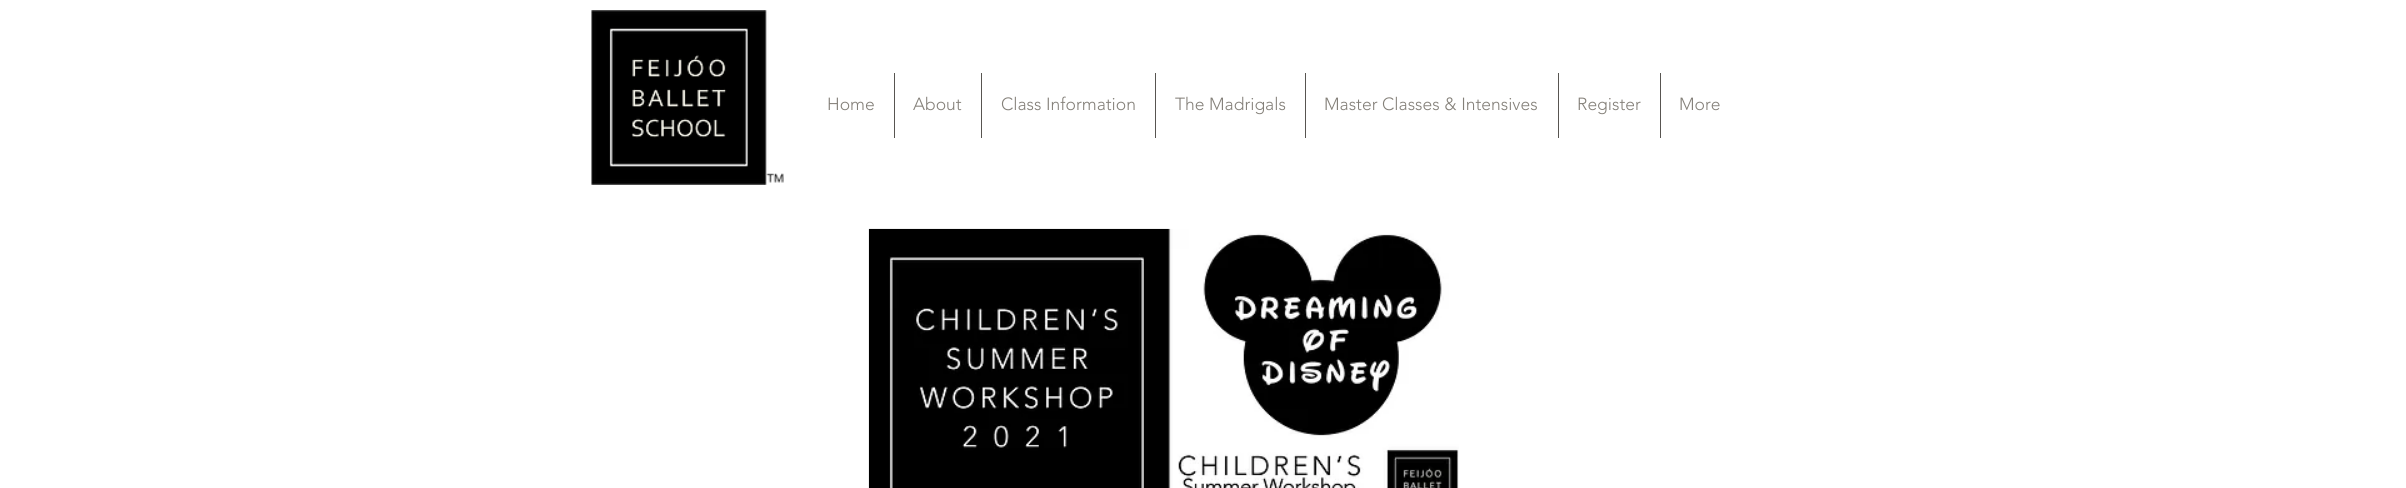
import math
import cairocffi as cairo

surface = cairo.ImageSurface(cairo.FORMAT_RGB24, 2406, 488)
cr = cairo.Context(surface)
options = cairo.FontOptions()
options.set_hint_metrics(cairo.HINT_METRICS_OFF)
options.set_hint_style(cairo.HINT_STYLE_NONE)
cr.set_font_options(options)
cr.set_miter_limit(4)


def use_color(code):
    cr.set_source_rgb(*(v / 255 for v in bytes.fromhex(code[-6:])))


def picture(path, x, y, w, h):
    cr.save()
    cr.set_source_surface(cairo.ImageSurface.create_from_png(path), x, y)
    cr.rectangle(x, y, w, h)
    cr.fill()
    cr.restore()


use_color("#ffffff")
cr.paint()
picture("img1.png", 591, 10, 193, 175)
cr.select_font_face("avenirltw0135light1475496 Light")
cr.set_font_size(17.5)
use_color("#848079")
cr.move_to(827, 110)
cr.show_text("Home")
use_color("#585551")
cr.rectangle(894, 73, 1, 65)
cr.fill()
use_color("#848079")
cr.move_to(913, 110)
cr.show_text("About")
use_color("#585551")
cr.rectangle(981, 73, 1, 65)
cr.fill()
use_color("#848079")
cr.move_to(1001, 110)
cr.show_text("Class Information")
use_color("#585551")
cr.rectangle(1155, 73, 1, 65)
cr.fill()
use_color("#848079")
cr.move_to(1175, 110)
cr.show_text("The Madrigals")
use_color("#585551")
cr.rectangle(1305, 73, 1, 65)
cr.fill()
use_color("#848079")
cr.move_to(1324, 110)
cr.show_text("Master Classes & Intensives")
use_color("#585551")
cr.rectangle(1558, 73, 1, 65)
cr.fill()
use_color("#848079")
cr.move_to(1577, 110)
cr.show_text("Register")
use_color("#585551")
cr.rectangle(1660, 73, 1, 65)
cr.fill()
use_color("#848079")
cr.move_to(1679, 110)
cr.show_text("More")
picture("img2.png", 868, 228, 591, 260)
surface.write_to_png("result.png")
